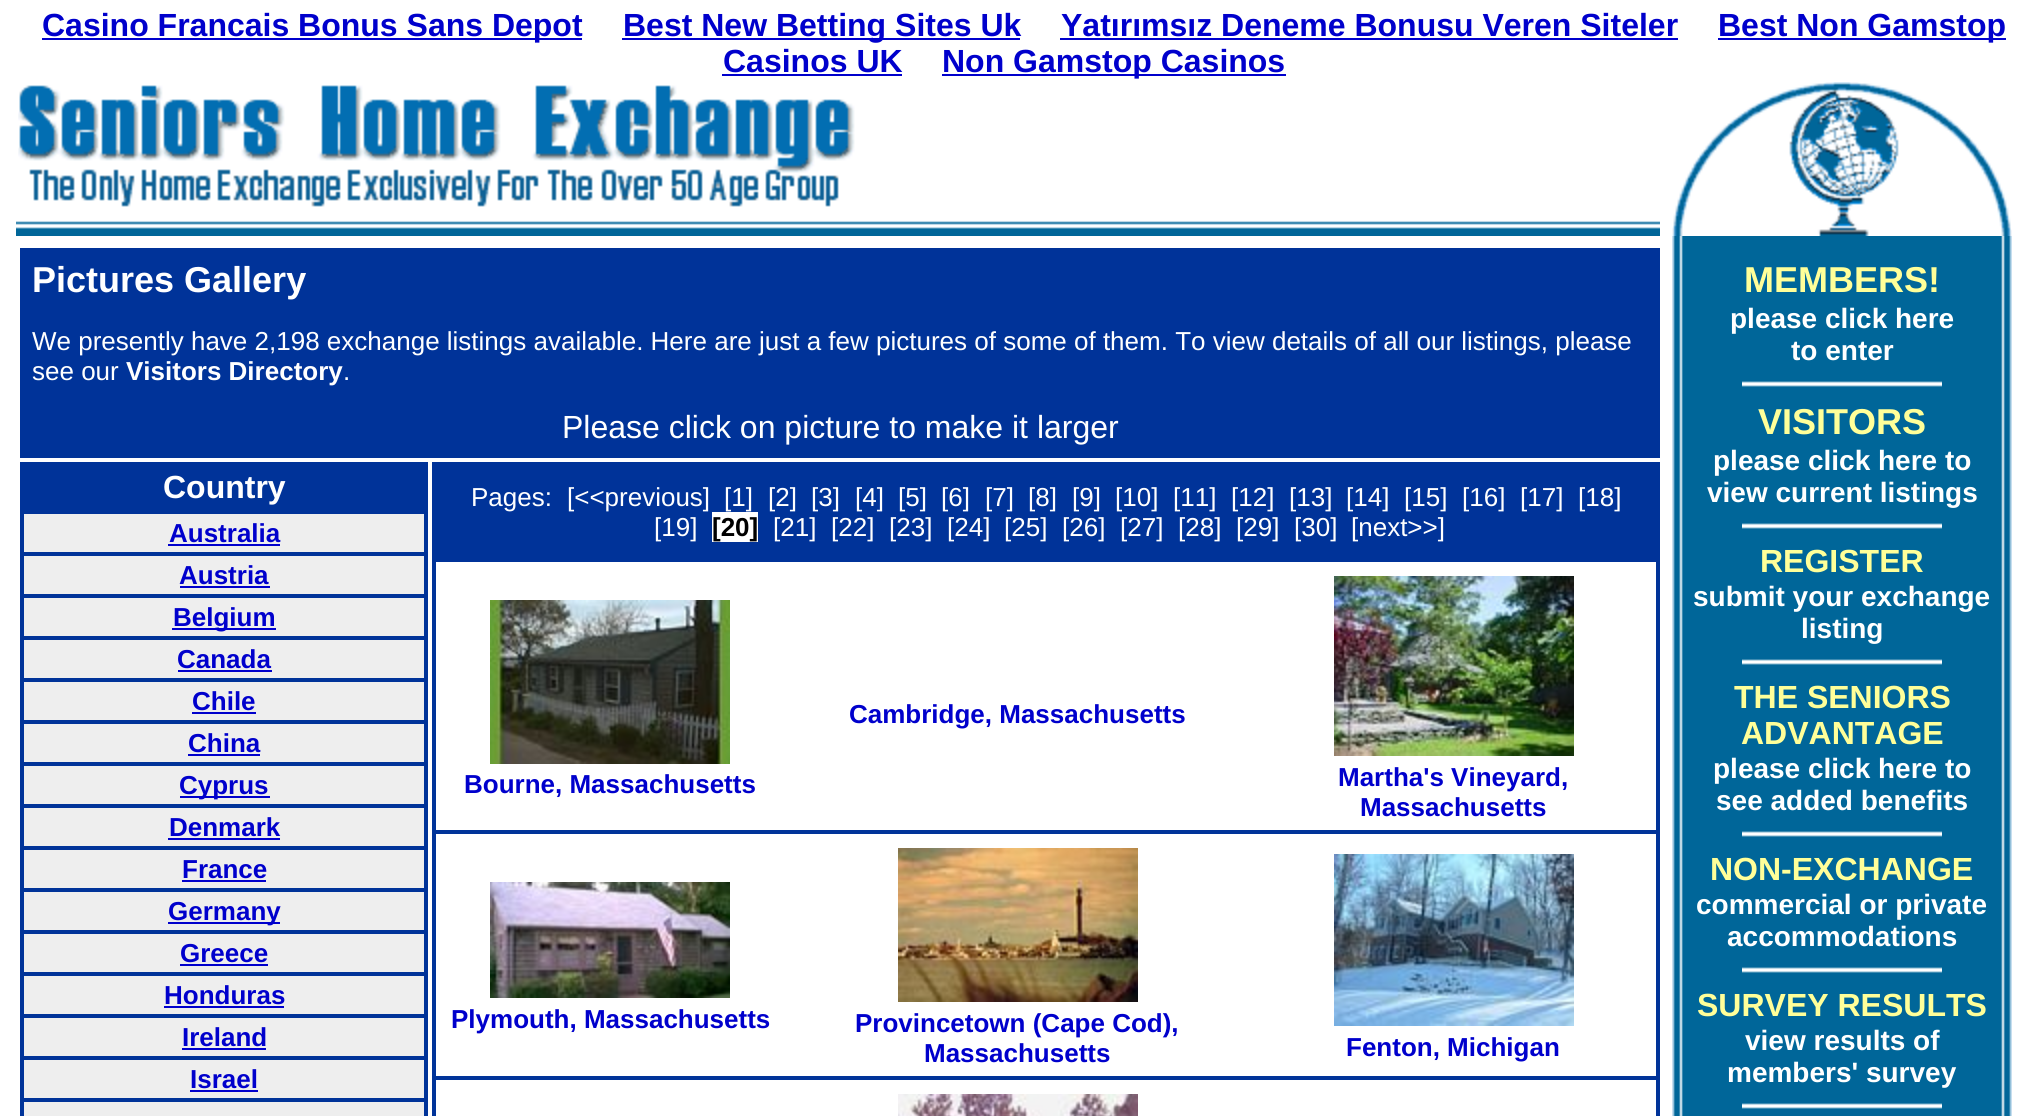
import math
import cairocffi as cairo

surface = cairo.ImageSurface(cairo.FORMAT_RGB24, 2027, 1116)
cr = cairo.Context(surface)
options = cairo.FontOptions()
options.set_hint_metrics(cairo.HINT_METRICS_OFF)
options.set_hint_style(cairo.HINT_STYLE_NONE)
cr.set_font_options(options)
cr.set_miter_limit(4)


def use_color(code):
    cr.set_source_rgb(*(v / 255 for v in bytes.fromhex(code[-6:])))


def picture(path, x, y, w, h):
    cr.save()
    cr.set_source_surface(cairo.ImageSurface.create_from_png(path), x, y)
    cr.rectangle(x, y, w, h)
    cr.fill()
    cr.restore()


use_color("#ffffff")
cr.paint()
use_color("#0000cc")
cr.rectangle(42, 38, 540, 2)
cr.fill()
cr.select_font_face("Liberation Sans", cairo.FONT_SLANT_NORMAL, cairo.FONT_WEIGHT_BOLD)
cr.set_font_size(32)
cr.move_to(42, 36)
cr.show_text("Casino Francais Bonus Sans Depot")
cr.rectangle(622, 38, 398, 2)
cr.fill()
cr.move_to(623, 36)
cr.show_text("Best New Betting Sites Uk")
cr.move_to(1061, 36)
cr.show_text("Yatırımsız Deneme Bonusu Veren Siteler")
cr.rectangle(1060, 38, 618, 2)
cr.fill()
cr.rectangle(1718, 38, 288, 2)
cr.fill()
cr.move_to(1718, 36)
cr.show_text("Best Non Gamstop")
cr.move_to(723, 72)
cr.show_text("Casinos UK")
cr.rectangle(722, 74, 180, 2)
cr.fill()
cr.rectangle(942, 74, 344, 2)
cr.fill()
cr.move_to(942, 72)
cr.show_text("Non Gamstop Casinos")
picture("img1.png", 16, 221, 1644, 15)
picture("img2.png", 18, 85, 837, 122)
picture("img3.png", 1672, 82, 340, 154)
use_color("#003399")
cr.rectangle(20, 248, 1640, 210)
cr.fill()
cr.set_font_size(36)
use_color("#ffffff")
cr.move_to(32, 292)
cr.show_text("Pictures Gallery")
cr.select_font_face("Liberation Sans")
cr.set_font_size(26)
cr.move_to(32, 350)
cr.show_text("We presently have 2,198 exchange listings available. Here are just a few pictures of some of them. To view details of all our listings, please")
cr.move_to(32, 380)
cr.show_text("see our")
cr.select_font_face("Liberation Sans", cairo.FONT_SLANT_NORMAL, cairo.FONT_WEIGHT_BOLD)
cr.move_to(126, 380)
cr.show_text("Visitors Directory")
cr.select_font_face("Liberation Sans")
cr.move_to(343, 380)
cr.show_text(".")
cr.set_font_size(32)
cr.move_to(562, 438)
cr.show_text("Please click on picture to make it larger")
use_color("#003399")
cr.rectangle(20, 462, 408, 654)
cr.fill()
cr.select_font_face("Liberation Sans", cairo.FONT_SLANT_NORMAL, cairo.FONT_WEIGHT_BOLD)
use_color("#ffffff")
cr.move_to(163, 498)
cr.show_text("Country")
use_color("#eeeeee")
cr.rectangle(24, 514, 400, 38)
cr.fill()
cr.set_font_size(26)
use_color("#0000cc")
cr.move_to(169, 542)
cr.show_text("Australia")
cr.rectangle(168, 544, 112, 2)
cr.fill()
use_color("#eeeeee")
cr.rectangle(24, 556, 400, 38)
cr.fill()
use_color("#0000cc")
cr.move_to(179, 584)
cr.show_text("Austria")
cr.rectangle(180, 586, 90, 2)
cr.fill()
use_color("#eeeeee")
cr.rectangle(24, 598, 400, 38)
cr.fill()
use_color("#0000cc")
cr.rectangle(172, 628, 104, 2)
cr.fill()
cr.move_to(173, 626)
cr.show_text("Belgium")
use_color("#eeeeee")
cr.rectangle(24, 640, 400, 38)
cr.fill()
use_color("#0000cc")
cr.move_to(177, 668)
cr.show_text("Canada")
cr.rectangle(178, 670, 94, 2)
cr.fill()
use_color("#eeeeee")
cr.rectangle(24, 682, 400, 38)
cr.fill()
use_color("#0000cc")
cr.move_to(192, 710)
cr.show_text("Chile")
cr.rectangle(192, 712, 64, 2)
cr.fill()
use_color("#eeeeee")
cr.rectangle(24, 724, 400, 38)
cr.fill()
use_color("#0000cc")
cr.move_to(188, 752)
cr.show_text("China")
cr.rectangle(188, 754, 72, 2)
cr.fill()
use_color("#eeeeee")
cr.rectangle(24, 766, 400, 38)
cr.fill()
use_color("#0000cc")
cr.rectangle(180, 796, 90, 2)
cr.fill()
cr.move_to(179, 794)
cr.show_text("Cyprus")
use_color("#eeeeee")
cr.rectangle(24, 808, 400, 38)
cr.fill()
use_color("#0000cc")
cr.move_to(169, 836)
cr.show_text("Denmark")
cr.rectangle(168, 838, 112, 2)
cr.fill()
use_color("#eeeeee")
cr.rectangle(24, 850, 400, 38)
cr.fill()
use_color("#0000cc")
cr.move_to(182, 878)
cr.show_text("France")
cr.rectangle(182, 880, 84, 2)
cr.fill()
use_color("#eeeeee")
cr.rectangle(24, 892, 400, 38)
cr.fill()
use_color("#0000cc")
cr.rectangle(168, 922, 112, 2)
cr.fill()
cr.move_to(168, 920)
cr.show_text("Germany")
use_color("#eeeeee")
cr.rectangle(24, 934, 400, 38)
cr.fill()
use_color("#0000cc")
cr.move_to(180, 962)
cr.show_text("Greece")
cr.rectangle(180, 964, 88, 2)
cr.fill()
use_color("#eeeeee")
cr.rectangle(24, 976, 400, 38)
cr.fill()
use_color("#0000cc")
cr.move_to(164, 1004)
cr.show_text("Honduras")
cr.rectangle(164, 1006, 120, 2)
cr.fill()
use_color("#eeeeee")
cr.rectangle(24, 1018, 400, 38)
cr.fill()
use_color("#0000cc")
cr.move_to(182, 1046)
cr.show_text("Ireland")
cr.rectangle(182, 1048, 84, 2)
cr.fill()
use_color("#eeeeee")
cr.rectangle(24, 1060, 400, 38)
cr.fill()
use_color("#0000cc")
cr.move_to(190, 1088)
cr.show_text("Israel")
cr.rectangle(190, 1090, 68, 2)
cr.fill()
use_color("#eeeeee")
cr.rectangle(24, 1102, 400, 14)
cr.fill()
use_color("#003399")
cr.rectangle(432, 462, 1228, 654)
cr.fill()
cr.select_font_face("Liberation Sans")
use_color("#ffffff")
cr.move_to(471, 506)
cr.show_text("Pages:")
cr.move_to(567, 506)
cr.show_text("[<<previous]")
cr.move_to(724, 506)
cr.show_text("[1]")
cr.move_to(768, 506)
cr.show_text("[2]")
cr.move_to(811, 506)
cr.show_text("[3]")
cr.move_to(855, 506)
cr.show_text("[4]")
cr.move_to(898, 506)
cr.show_text("[5]")
cr.move_to(941, 506)
cr.show_text("[6]")
cr.move_to(985, 506)
cr.show_text("[7]")
cr.move_to(1028, 506)
cr.show_text("[8]")
cr.move_to(1072, 506)
cr.show_text("[9]")
cr.move_to(1115, 506)
cr.show_text("[10]")
cr.move_to(1173, 506)
cr.show_text("[11]")
cr.move_to(1231, 506)
cr.show_text("[12]")
cr.move_to(1289, 506)
cr.show_text("[13]")
cr.move_to(1346, 506)
cr.show_text("[14]")
cr.move_to(1404, 506)
cr.show_text("[15]")
cr.move_to(1462, 506)
cr.show_text("[16]")
cr.move_to(1520, 506)
cr.show_text("[17]")
cr.move_to(1578, 506)
cr.show_text("[18]")
cr.move_to(654, 536)
cr.show_text("[19]")
cr.rectangle(712, 512, 46, 30)
cr.fill()
cr.select_font_face("Liberation Sans", cairo.FONT_SLANT_NORMAL, cairo.FONT_WEIGHT_BOLD)
use_color("#000000")
cr.move_to(712, 536)
cr.show_text("[20]")
cr.select_font_face("Liberation Sans")
use_color("#ffffff")
cr.move_to(773, 536)
cr.show_text("[21]")
cr.move_to(831, 536)
cr.show_text("[22]")
cr.move_to(889, 536)
cr.show_text("[23]")
cr.move_to(947, 536)
cr.show_text("[24]")
cr.move_to(1004, 536)
cr.show_text("[25]")
cr.move_to(1062, 536)
cr.show_text("[26]")
cr.move_to(1120, 536)
cr.show_text("[27]")
cr.move_to(1178, 536)
cr.show_text("[28]")
cr.move_to(1236, 536)
cr.show_text("[29]")
cr.move_to(1294, 536)
cr.show_text("[30]")
cr.move_to(1351, 536)
cr.show_text("[next>>]")
cr.rectangle(436, 562, 1220, 268)
cr.fill()
cr.select_font_face("Liberation Sans", cairo.FONT_SLANT_NORMAL, cairo.FONT_WEIGHT_BOLD)
use_color("#0000cc")
cr.move_to(849, 723)
cr.show_text("Cambridge, Massachusetts")
picture("img4.png", 490, 600, 240, 164)
cr.move_to(464, 793)
cr.show_text("Bourne, Massachusetts")
picture("img5.png", 1334, 576, 240, 180)
cr.move_to(1338, 786)
cr.show_text("Martha's Vineyard,")
cr.move_to(1360, 816)
cr.show_text("Massachusetts")
use_color("#ffffff")
cr.rectangle(436, 834, 1220, 242)
cr.fill()
picture("img6.png", 490, 882, 240, 116)
use_color("#0000cc")
cr.move_to(451, 1028)
cr.show_text("Plymouth, Massachusetts")
picture("img7.png", 898, 848, 240, 154)
cr.move_to(855, 1032)
cr.show_text("Provincetown (Cape Cod),")
cr.move_to(924, 1062)
cr.show_text("Massachusetts")
picture("img8.png", 1334, 854, 240, 172)
cr.move_to(1346, 1056)
cr.show_text("Fenton, Michigan")
use_color("#ffffff")
cr.rectangle(436, 1080, 1220, 36)
cr.fill()
picture("img9.png", 898, 1094, 240, 22)
picture("img10.png", 1672, 236, 340, 880)
cr.set_font_size(36)
use_color("#ffff99")
cr.move_to(1744, 292)
cr.show_text("MEMBERS!")
cr.set_font_size(28)
use_color("#ffffff")
cr.move_to(1730, 328)
cr.show_text("please click here")
cr.move_to(1791, 360)
cr.show_text("to enter")
picture("img11.png", 1742, 381, 200, 6)
cr.set_font_size(36)
use_color("#ffff99")
cr.move_to(1758, 434)
cr.show_text("VISITORS")
cr.set_font_size(28)
use_color("#ffffff")
cr.move_to(1713, 470)
cr.show_text("please click here to")
cr.move_to(1707, 502)
cr.show_text("view current listings")
picture("img11.png", 1742, 523, 200, 6)
cr.set_font_size(32)
use_color("#ffff99")
cr.move_to(1760, 572)
cr.show_text("REGISTER")
cr.set_font_size(28)
use_color("#ffffff")
cr.move_to(1693, 606)
cr.show_text("submit your exchange")
cr.move_to(1801, 638)
cr.show_text("listing")
picture("img11.png", 1742, 659, 200, 6)
cr.set_font_size(32)
use_color("#ffff99")
cr.move_to(1734, 708)
cr.show_text("THE SENIORS")
cr.move_to(1741, 744)
cr.show_text("ADVANTAGE")
cr.set_font_size(28)
use_color("#ffffff")
cr.move_to(1713, 778)
cr.show_text("please click here to")
cr.move_to(1716, 810)
cr.show_text("see added benefits")
picture("img11.png", 1742, 831, 200, 6)
cr.set_font_size(32)
use_color("#ffff99")
cr.move_to(1710, 880)
cr.show_text("NON-EXCHANGE")
cr.set_font_size(28)
use_color("#ffffff")
cr.move_to(1696, 914)
cr.show_text("commercial or private")
cr.move_to(1727, 946)
cr.show_text("accommodations")
picture("img11.png", 1742, 967, 200, 6)
cr.set_font_size(32)
use_color("#ffff99")
cr.move_to(1697, 1016)
cr.show_text("SURVEY RESULTS")
cr.set_font_size(28)
use_color("#ffffff")
cr.move_to(1745, 1050)
cr.show_text("view results of")
cr.move_to(1727, 1082)
cr.show_text("members' survey")
picture("img11.png", 1742, 1103, 200, 6)
surface.write_to_png("result.png")
